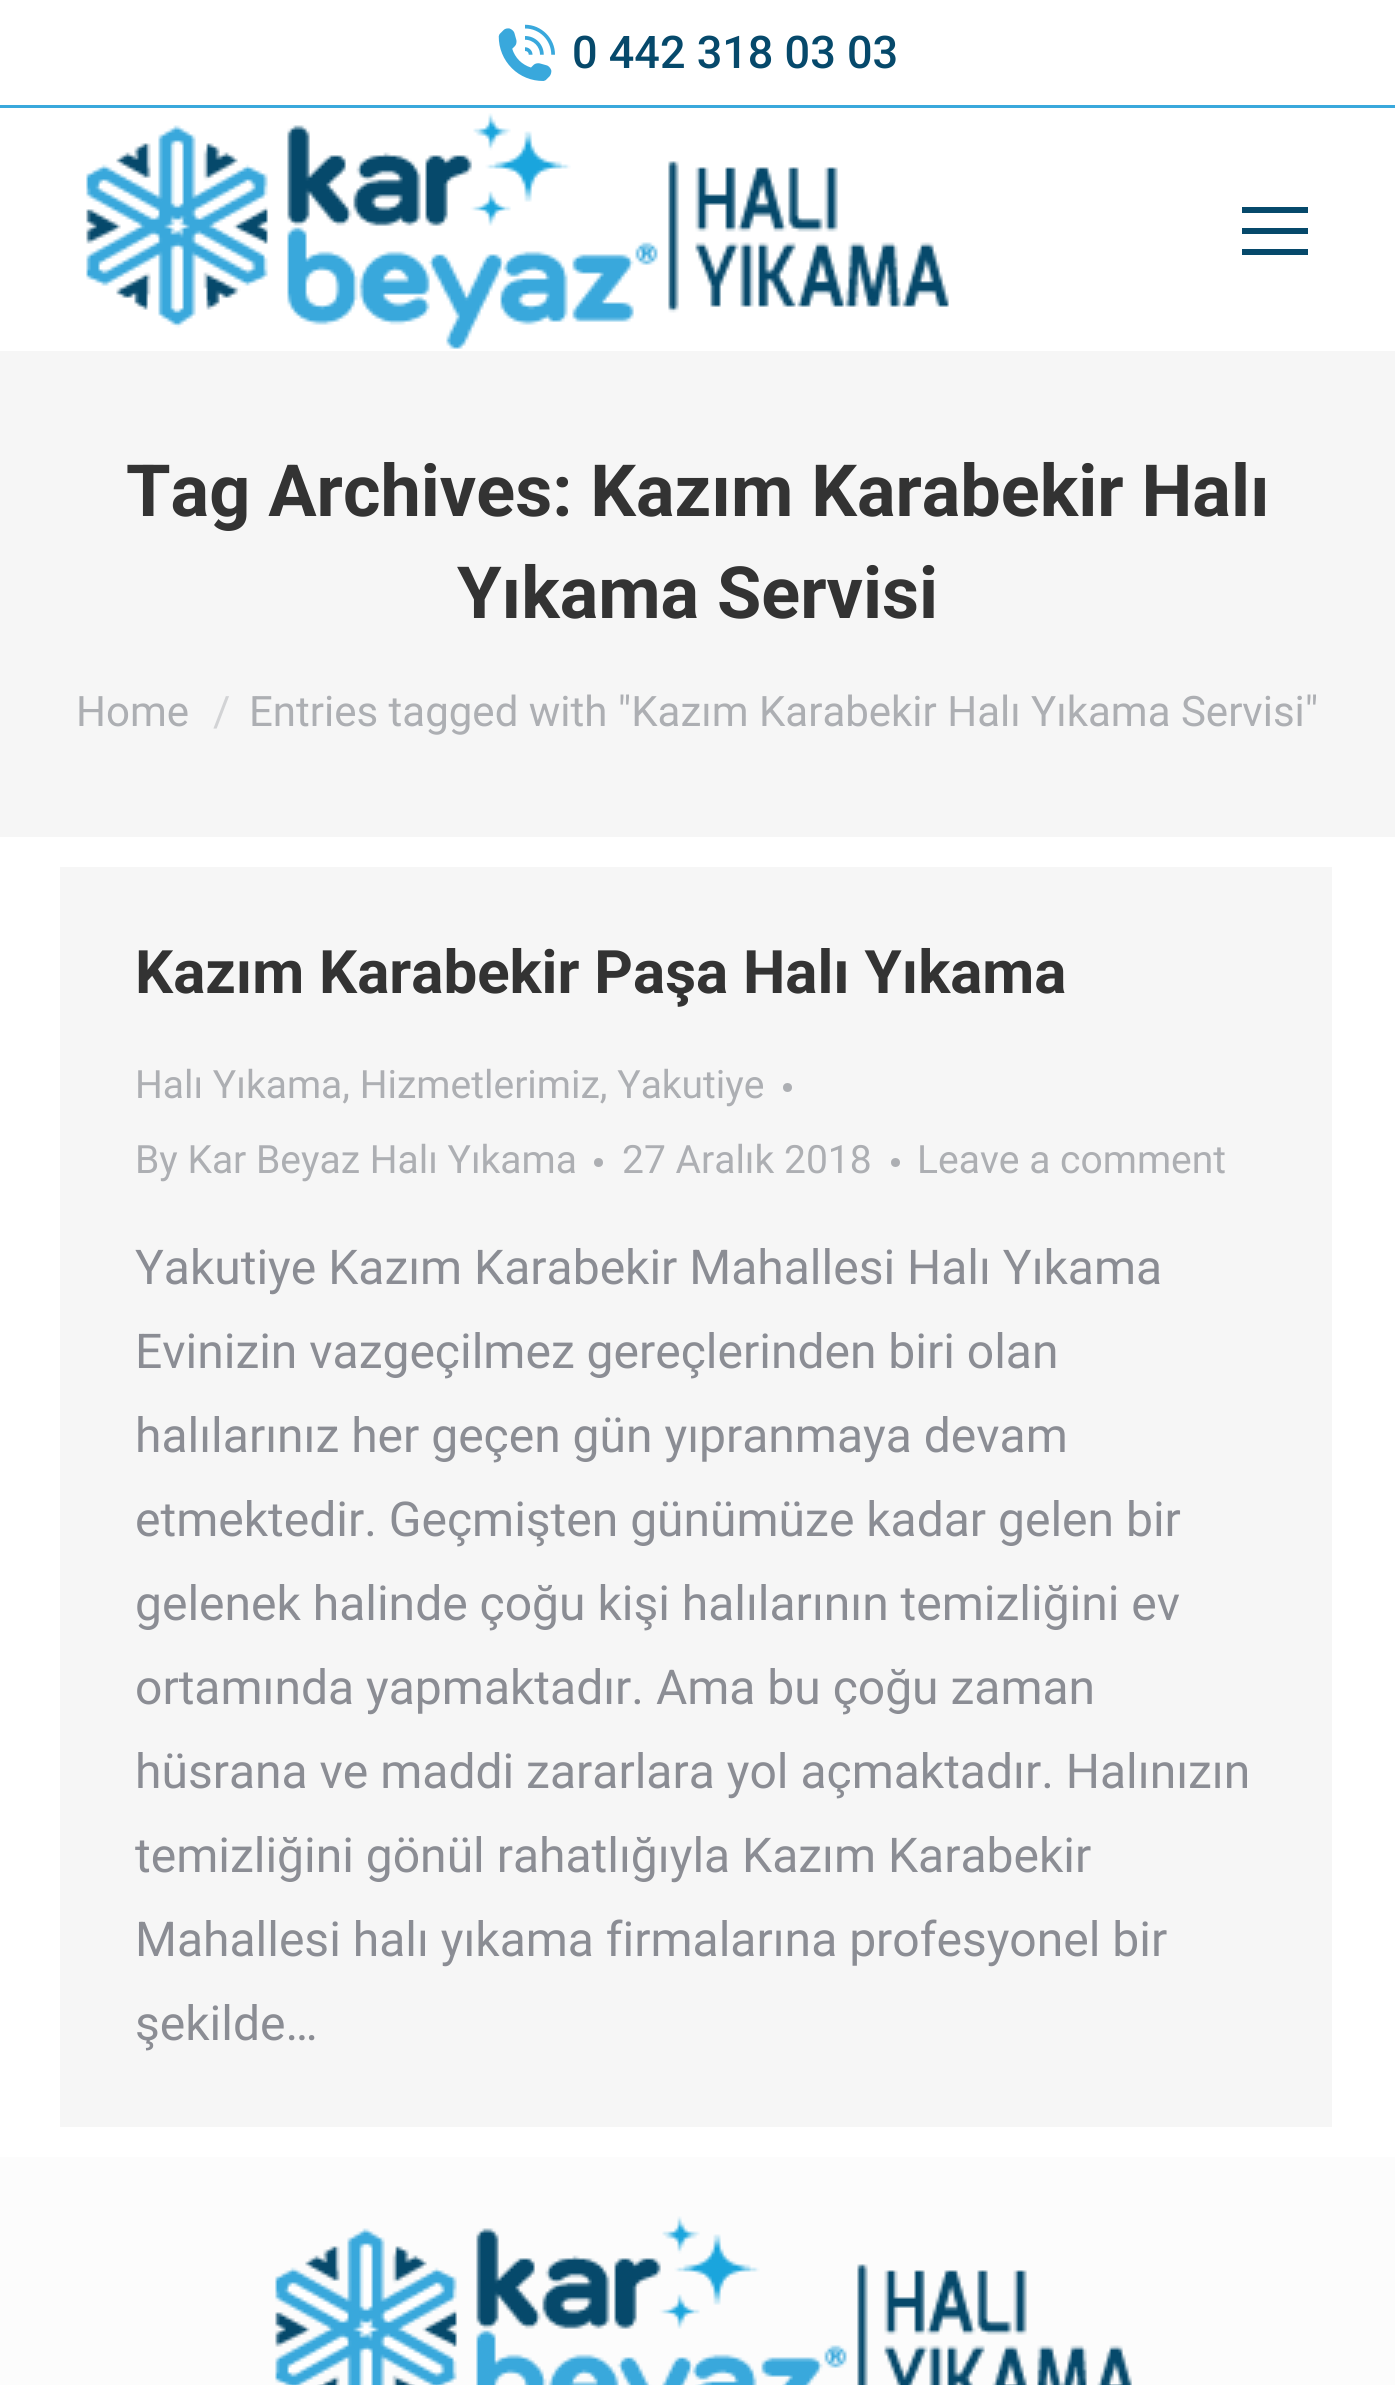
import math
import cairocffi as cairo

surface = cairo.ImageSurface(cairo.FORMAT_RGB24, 1395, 2385)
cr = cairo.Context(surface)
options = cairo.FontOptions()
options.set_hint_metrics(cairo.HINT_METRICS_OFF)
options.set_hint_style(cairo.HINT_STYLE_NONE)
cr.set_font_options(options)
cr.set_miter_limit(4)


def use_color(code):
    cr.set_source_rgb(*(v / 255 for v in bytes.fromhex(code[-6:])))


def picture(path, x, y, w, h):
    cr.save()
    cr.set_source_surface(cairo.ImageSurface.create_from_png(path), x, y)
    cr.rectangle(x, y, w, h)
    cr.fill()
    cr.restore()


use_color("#ffffff")
cr.paint()
picture("img1.png", 498, 24, 57, 57)
cr.select_font_face("Roboto Medium")
cr.set_font_size(45)
use_color("#06496b")
cr.move_to(572, 68)
cr.show_text("0 442 318 03 03")
use_color("#39a8dc")
cr.rectangle(0, 105, 1395, 3)
cr.fill()
picture("img2.png", 86, 113, 863, 236)
use_color("#06496b")
cr.rectangle(1242, 207, 66, 6)
cr.fill()
cr.rectangle(1242, 228, 66, 6)
cr.fill()
cr.rectangle(1242, 249, 66, 6)
cr.fill()
use_color("#f6f6f6")
cr.rectangle(0, 351, 1395, 486)
cr.fill()
cr.select_font_face("Roboto", cairo.FONT_SLANT_NORMAL, cairo.FONT_WEIGHT_BOLD)
cr.set_font_size(72)
use_color("#333333")
cr.move_to(126, 516)
cr.show_text("Tag Archives: Kazım Karabekir Halı")
cr.move_to(457, 618)
cr.show_text("Yıkama Servisi")
cr.select_font_face("Roboto")
cr.set_font_size(42)
use_color("#adafb3")
cr.move_to(76, 726)
cr.show_text("Home")
use_color("#d2d3d5")
cr.move_to(213, 726)
cr.show_text("/")
use_color("#adafb3")
cr.move_to(249, 726)
cr.show_text("Entries tagged with \"Kazım Karabekir Halı Yıkama Servisi\"")
use_color("#f6f6f6")
cr.rectangle(60, 867, 1272, 1260)
cr.fill()
cr.select_font_face("Roboto", cairo.FONT_SLANT_NORMAL, cairo.FONT_WEIGHT_BOLD)
cr.set_font_size(60)
use_color("#333333")
cr.move_to(135, 993)
cr.show_text("Kazım Karabekir Paşa Halı Yıkama")
cr.select_font_face("Roboto")
cr.set_font_size(39)
use_color("#adafb3")
cr.move_to(135, 1098)
cr.show_text("Halı Yıkama, Hizmetlerimiz, Yakutiye")
cr.new_path()
cr.arc(787.5, 1087.5, 4.5, 0, 2 * math.pi)
cr.fill()
cr.move_to(135, 1173)
cr.show_text("By Kar Beyaz Halı Yıkama")
cr.new_path()
cr.arc(598.5, 1162.5, 4.5, 0, 2 * math.pi)
cr.fill()
cr.move_to(622, 1173)
cr.show_text("27 Aralık 2018")
cr.new_path()
cr.arc(895.5, 1162.5, 4.5, 0, 2 * math.pi)
cr.fill()
cr.move_to(917, 1173)
cr.show_text("Leave a comment")
cr.set_font_size(48)
use_color("#8b8d94")
cr.move_to(135, 1284)
cr.show_text("Yakutiye Kazım Karabekir Mahallesi Halı Yıkama")
cr.move_to(135, 1368)
cr.show_text("Evinizin vazgeçilmez gereçlerinden biri olan")
cr.move_to(135, 1452)
cr.show_text("halılarınız her geçen gün yıpranmaya devam")
cr.move_to(135, 1536)
cr.show_text("etmektedir. Geçmişten günümüze kadar gelen bir")
cr.move_to(135, 1620)
cr.show_text("gelenek halinde çoğu kişi halılarının temizliğini ev")
cr.move_to(135, 1704)
cr.show_text("ortamında yapmaktadır. Ama bu çoğu zaman")
cr.move_to(135, 1788)
cr.show_text("hüsrana ve maddi zararlara yol açmaktadır. Halınızın")
cr.move_to(135, 1872)
cr.show_text("temizliğini gönül rahatlığıyla Kazım Karabekir")
cr.move_to(135, 1956)
cr.show_text("Mahallesi halı yıkama firmalarına profesyonel bir")
cr.move_to(135, 2040)
cr.show_text("şekilde…")
use_color("#fcfcfc")
cr.rectangle(0, 2157, 1395, 228)
cr.fill()
picture("img3.png", 275, 2216, 857, 169)
surface.write_to_png("result.png")
